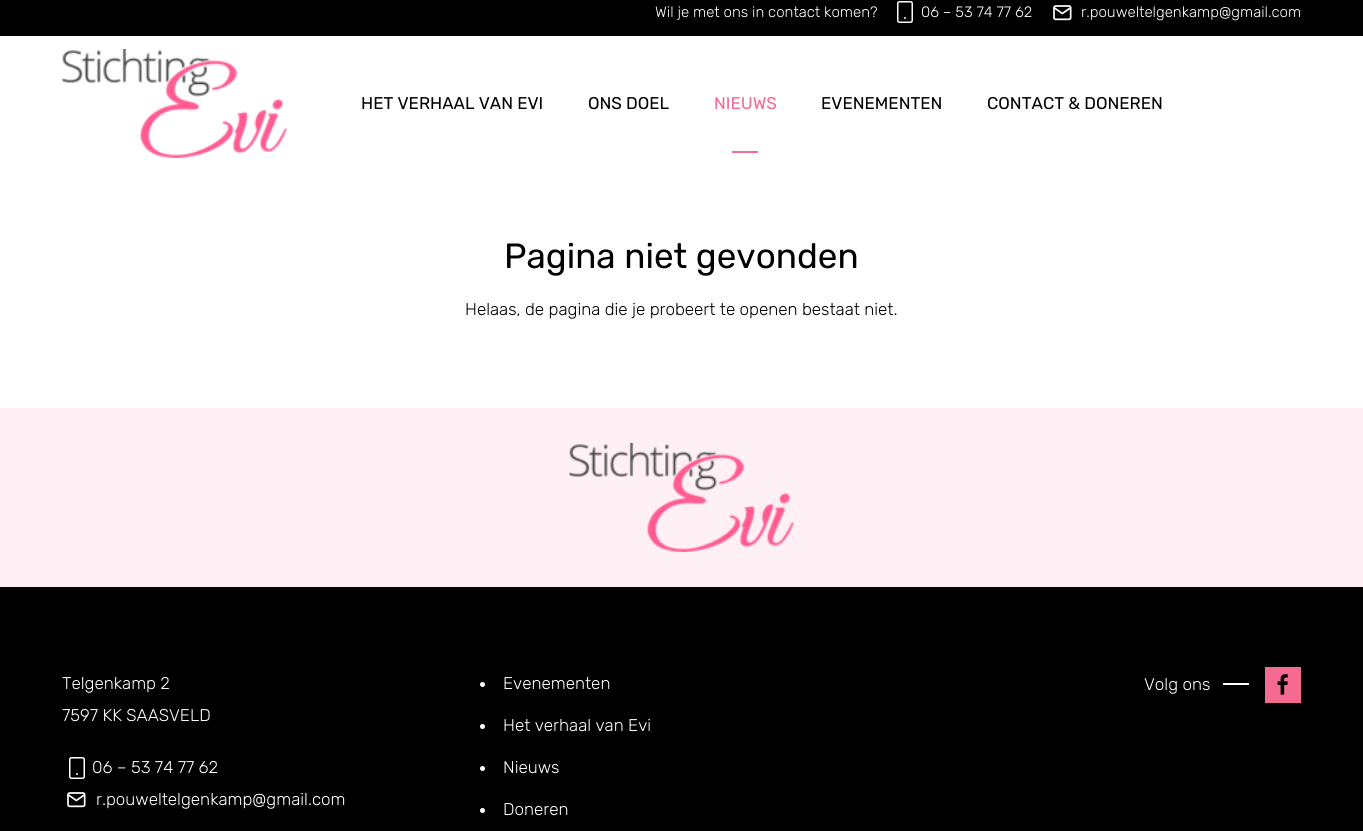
import math
import cairocffi as cairo

surface = cairo.ImageSurface(cairo.FORMAT_RGB24, 1363, 831)
cr = cairo.Context(surface)
options = cairo.FontOptions()
options.set_hint_metrics(cairo.HINT_METRICS_OFF)
options.set_hint_style(cairo.HINT_STYLE_NONE)
cr.set_font_options(options)
cr.set_miter_limit(4)


def use_color(code):
    cr.set_source_rgb(*(v / 255 for v in bytes.fromhex(code[-6:])))


def round_rect(x, y, w, h, r):
    cr.new_sub_path()
    for i, (u, v) in enumerate([(x + w - r, y + h - r), (x + r, y + h - r), (x + r, y + r), (x + w - r, y + r)]):
        cr.arc(u, v, r, i * math.pi / 2, (i + 1) * math.pi / 2)
    cr.close_path()


def picture(path, x, y, w, h):
    cr.save()
    cr.set_source_surface(cairo.ImageSurface.create_from_png(path), x, y)
    cr.rectangle(x, y, w, h)
    cr.fill()
    cr.restore()


use_color("#ffffff")
cr.paint()
use_color("#000000")
cr.rectangle(0, 0, 1363, 36)
cr.fill()
cr.select_font_face("Rubik Light")
cr.set_font_size(15)
use_color("#ffffff")
cr.move_to(655, 17)
cr.show_text("Wil je met ons in contact komen?")
round_rect(897.75, 1.75, 14.5, 20.5, 1.75)
cr.set_line_width(1.5)
cr.stroke()
cr.move_to(921, 17)
cr.show_text("06 – 53 74 77 62")
cr.new_path()
cr.arc(905, 18, 1, 0, 2 * math.pi)
cr.fill()
picture("img1.png", 1053, 5, 19, 16)
cr.move_to(1081, 17)
cr.show_text("r.pouweltelgenkamp@gmail.com")
picture("img2.png", 62, 49, 225, 109)
cr.select_font_face("Rubik")
cr.set_font_size(17)
use_color("#000000")
cr.move_to(361, 109)
cr.show_text("HET VERHAAL VAN EVI")
cr.move_to(588, 109)
cr.show_text("ONS DOEL")
use_color("#f56a91")
cr.move_to(714, 109)
cr.show_text("NIEUWS")
cr.rectangle(732, 151, 26, 2)
cr.fill()
use_color("#000000")
cr.move_to(821, 109)
cr.show_text("EVENEMENTEN")
cr.move_to(987, 109)
cr.show_text("CONTACT & DONEREN")
cr.set_font_size(35)
cr.move_to(504, 268)
cr.show_text("Pagina niet gevonden")
cr.select_font_face("Rubik Light")
cr.set_font_size(17)
cr.move_to(465, 315)
cr.show_text("Helaas, de pagina die je probeert te openen bestaat niet.")
cr.rectangle(0, 587, 1363, 244)
cr.fill()
use_color("#fef0f4")
cr.rectangle(0, 408, 1363, 179)
cr.fill()
picture("img3.png", 569, 443, 225, 109)
use_color("#ffffff")
cr.move_to(62, 689)
cr.show_text("Telgenkamp 2")
cr.move_to(62, 721)
cr.show_text("7597 KK SAASVELD")
round_rect(69.75, 757.75, 14.5, 20.5, 1.75)
cr.stroke()
cr.arc(77, 774, 1, 0, 2 * math.pi)
cr.fill()
cr.move_to(92, 773)
cr.show_text("06 – 53 74 77 62")
picture("img1.png", 67, 792, 19, 16)
cr.move_to(96, 805)
cr.show_text("r.pouweltelgenkamp@gmail.com")
cr.new_path()
cr.arc(482.5, 684.5, 2.5, 0, 2 * math.pi)
cr.fill()
cr.move_to(503, 689)
cr.show_text("Evenementen")
cr.new_path()
cr.arc(482.5, 726.5, 2.5, 0, 2 * math.pi)
cr.fill()
cr.move_to(503, 731)
cr.show_text("Het verhaal van Evi")
cr.new_path()
cr.arc(482.5, 768.5, 2.5, 0, 2 * math.pi)
cr.fill()
cr.move_to(503, 773)
cr.show_text("Nieuws")
cr.new_path()
cr.arc(482.5, 810.5, 2.5, 0, 2 * math.pi)
cr.fill()
cr.move_to(503, 815)
cr.show_text("Doneren")
cr.move_to(1144, 690)
cr.show_text("Volg ons")
cr.rectangle(1223, 683, 26, 2)
cr.fill()
use_color("#f56a91")
cr.rectangle(1265, 667, 36, 36)
cr.fill()
picture("img4.png", 1277, 674, 11, 21)
surface.write_to_png("result.png")
